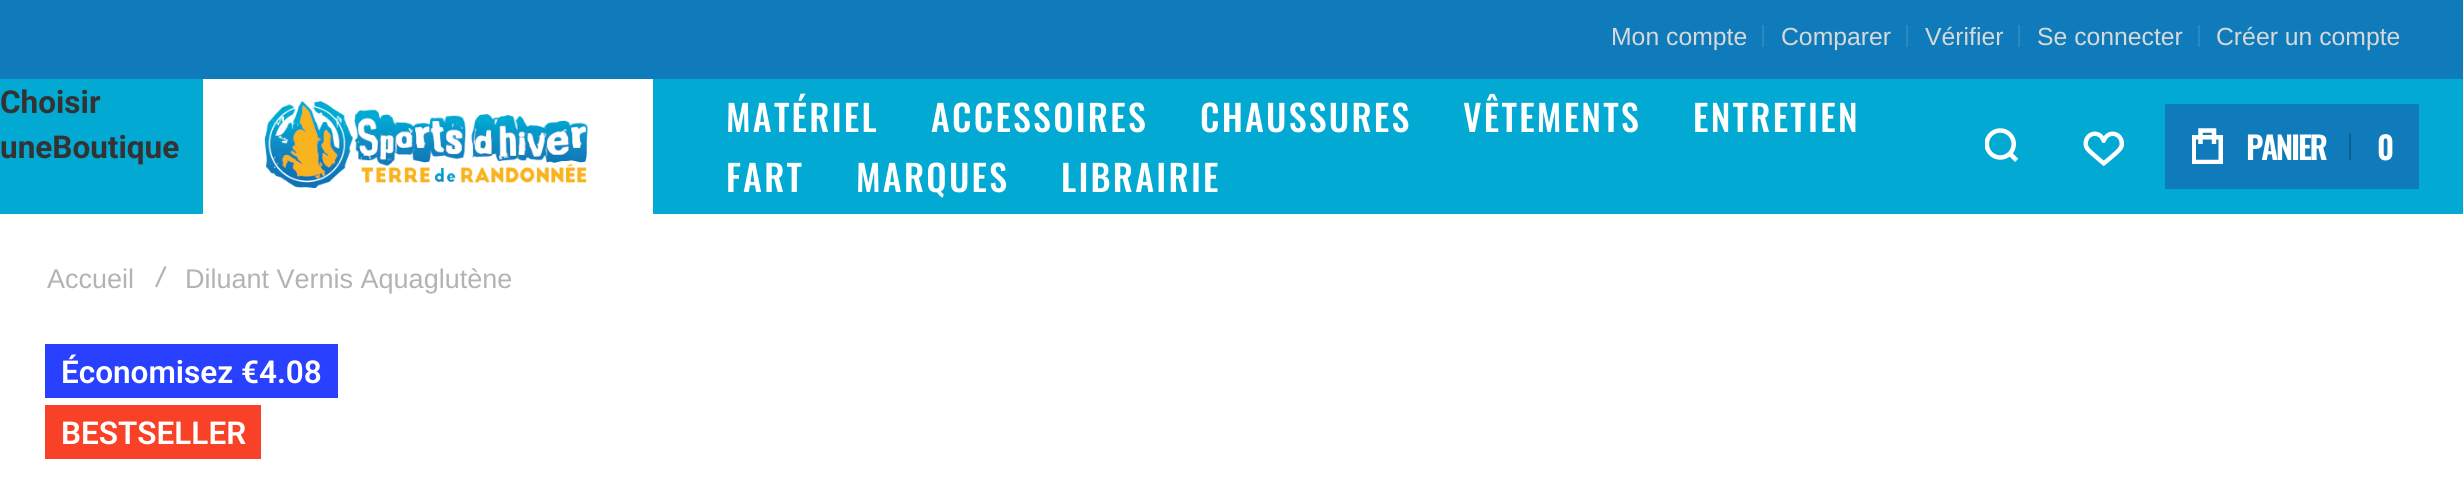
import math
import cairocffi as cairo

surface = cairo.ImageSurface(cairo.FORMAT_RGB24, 2463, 485)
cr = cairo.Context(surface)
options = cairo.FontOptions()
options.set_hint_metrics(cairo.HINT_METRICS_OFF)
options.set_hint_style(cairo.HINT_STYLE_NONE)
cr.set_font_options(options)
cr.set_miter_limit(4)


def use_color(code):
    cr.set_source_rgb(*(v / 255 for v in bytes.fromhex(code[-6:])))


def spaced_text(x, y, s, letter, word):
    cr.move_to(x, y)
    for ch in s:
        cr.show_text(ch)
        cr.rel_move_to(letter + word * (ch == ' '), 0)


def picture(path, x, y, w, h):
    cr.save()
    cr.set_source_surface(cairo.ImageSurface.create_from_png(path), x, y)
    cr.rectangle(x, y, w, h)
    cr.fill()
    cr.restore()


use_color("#ffffff")
cr.paint()
use_color("#02a9d2")
cr.rectangle(0, 79, 2463, 135)
cr.fill()
use_color("#0f7bba")
cr.rectangle(0, 0, 2463, 79)
cr.fill()
cr.select_font_face("Liberation Sans")
cr.set_font_size(24.75)
use_color("#d9d9d9")
cr.move_to(1611, 45)
cr.show_text("Mon compte")
use_color("#298ac2")
cr.rectangle(1762, 25, 2, 22)
cr.fill()
use_color("#d9d9d9")
cr.move_to(1781, 45)
cr.show_text("Comparer")
use_color("#298ac2")
cr.rectangle(1906, 25, 2, 22)
cr.fill()
use_color("#d9d9d9")
cr.move_to(1925, 45)
cr.show_text("Vérifier")
use_color("#298ac2")
cr.rectangle(2018, 25, 2, 22)
cr.fill()
use_color("#d9d9d9")
cr.move_to(2037, 45)
cr.show_text("Se connecter")
use_color("#298ac2")
cr.rectangle(2198, 25, 2, 22)
cr.fill()
use_color("#d9d9d9")
cr.move_to(2216, 45)
cr.show_text("Créer un compte")
cr.select_font_face("Roboto", cairo.FONT_SLANT_NORMAL, cairo.FONT_WEIGHT_BOLD)
cr.set_font_size(31.5)
use_color("#333333")
cr.move_to(0, 113)
cr.show_text("Choisir")
cr.move_to(0, 158)
cr.show_text("uneBoutique")
use_color("#ffffff")
cr.rectangle(203, 79, 450, 135)
cr.fill()
picture("img1.png", 264, 101, 324, 88)
cr.select_font_face("Oswald Medium")
cr.set_font_size(36)
spaced_text(726, 132, "MATÉRIEL", 2.25, 0)
spaced_text(931, 132, "ACCESSOIRES", 2.25, 0)
spaced_text(1200, 132, "CHAUSSURES", 2.25, 0)
spaced_text(1463, 132, "VÊTEMENTS", 2.25, 0)
spaced_text(1693, 132, "ENTRETIEN", 2.25, 0)
spaced_text(726, 192, "FART", 2.25, 0)
spaced_text(856, 192, "MARQUES", 2.25, 0)
spaced_text(1061, 192, "LIBRAIRIE", 2.25, 0)
picture("img2.png", 1985, 128, 33, 34)
picture("img3.png", 2083, 131, 42, 36)
use_color("#0f7bba")
cr.rectangle(2165, 104, 254, 85)
cr.fill()
picture("img4.png", 2192, 128, 31, 36)
cr.select_font_face("Oswald SemiBold")
cr.set_font_size(31.5)
use_color("#ffffff")
spaced_text(2246, 160, "PANIER", -2.25, 0)
use_color("#0c6193")
cr.rectangle(2349, 133, 2, 27)
cr.fill()
use_color("#ffffff")
spaced_text(2377, 160, "0", -2.25, 0)
cr.select_font_face("Liberation Sans")
cr.set_font_size(27)
use_color("#b3b3b3")
cr.move_to(47, 288)
cr.show_text("Accueil")
cr.new_path()
cr.move_to(164.5, 266)
cr.line_to(166.5, 267)
cr.line_to(157, 287.5)
cr.line_to(155, 286.5)
cr.close_path()
cr.fill()
cr.move_to(185, 288)
cr.show_text("Diluant Vernis Aquaglutène")
use_color("#2a40ff")
cr.rectangle(45, 344, 293, 54)
cr.fill()
cr.select_font_face("Roboto SemiBold")
cr.set_font_size(31.5)
use_color("#ffffff")
cr.move_to(61, 383)
cr.show_text("Économisez €4.08")
use_color("#f94127")
cr.rectangle(45, 405, 216, 54)
cr.fill()
use_color("#ffffff")
cr.move_to(61, 444)
cr.show_text("BESTSELLER")
surface.write_to_png("result.png")
